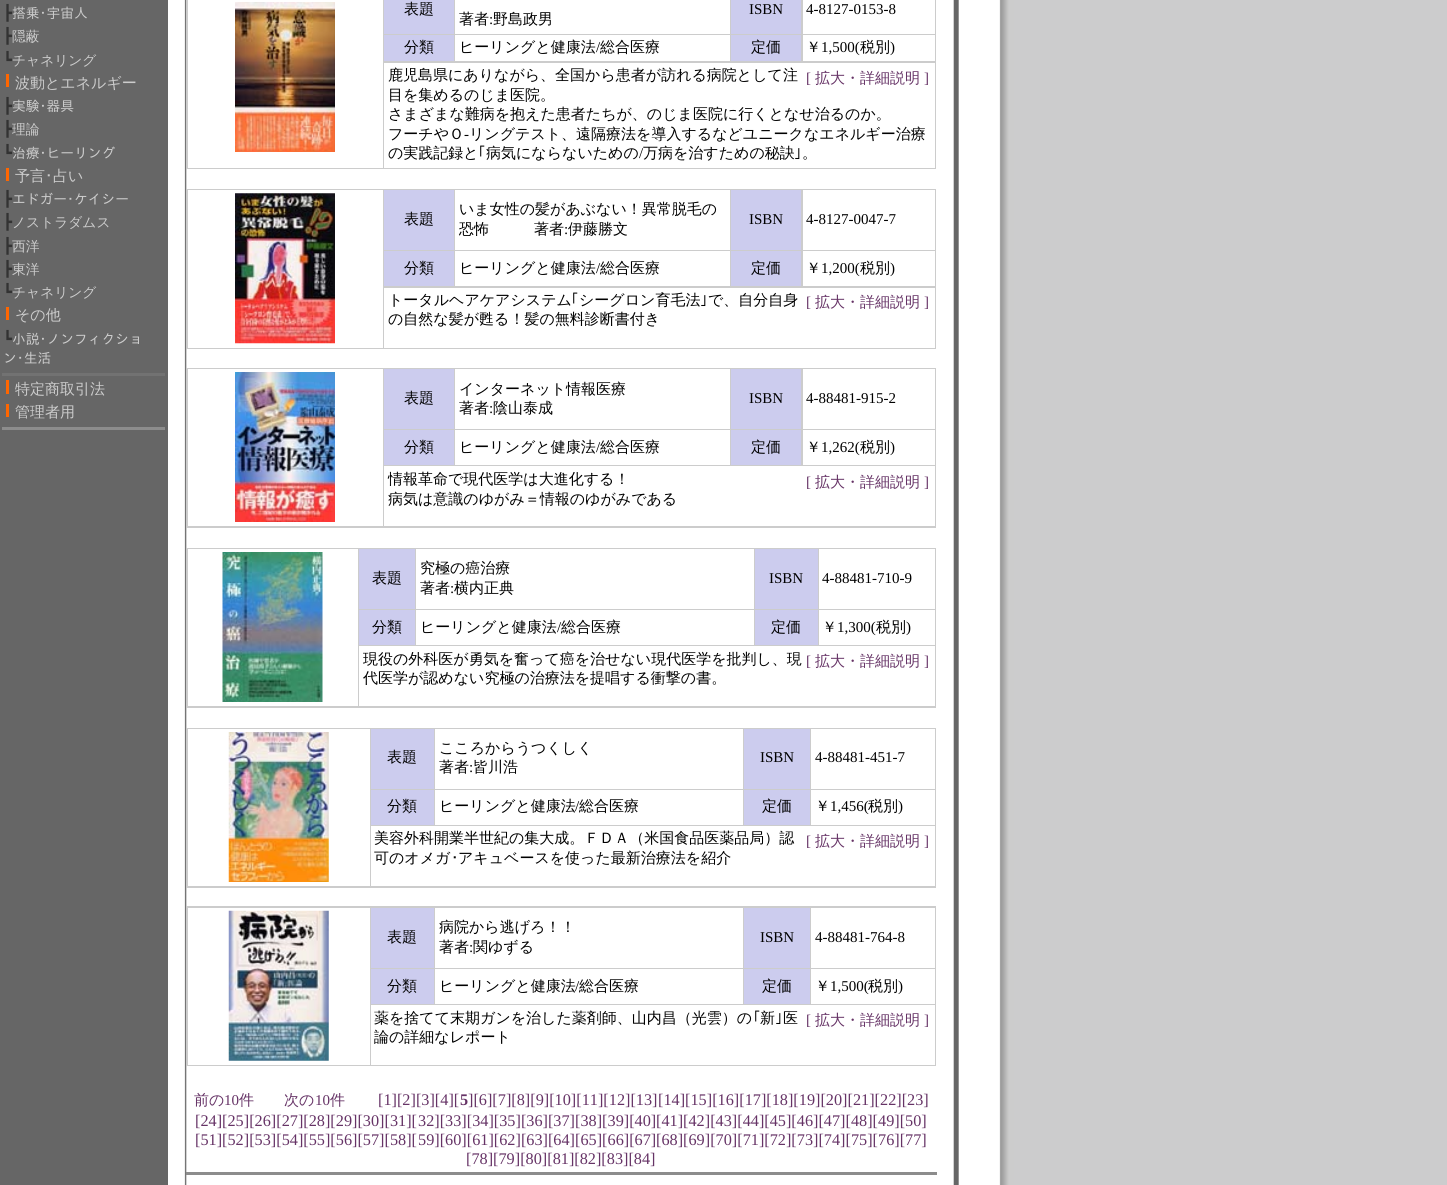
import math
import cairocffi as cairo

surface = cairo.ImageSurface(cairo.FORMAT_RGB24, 1447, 1185)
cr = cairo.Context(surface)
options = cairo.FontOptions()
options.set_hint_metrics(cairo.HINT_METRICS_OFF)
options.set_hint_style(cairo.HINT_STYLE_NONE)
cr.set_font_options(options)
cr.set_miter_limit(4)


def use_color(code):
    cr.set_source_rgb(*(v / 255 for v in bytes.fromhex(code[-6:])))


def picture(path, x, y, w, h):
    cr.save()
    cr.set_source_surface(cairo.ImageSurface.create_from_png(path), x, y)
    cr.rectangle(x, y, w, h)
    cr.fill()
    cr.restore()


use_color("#ffffff")
cr.paint()
picture("img1.png", 168, 0, 1279, 1185)
use_color("#666666")
cr.rectangle(0, 0, 168, 1185)
cr.fill()
cr.select_font_face("DejaVu Sans")
cr.set_font_size(15)
use_color("#333333")
cr.move_to(3, 18)
cr.show_text("┣")
cr.select_font_face("IPAGothic")
cr.set_font_size(13.75)
use_color("#cccccc")
cr.move_to(12, 18)
cr.show_text("搭乗･宇宙人")
cr.select_font_face("DejaVu Sans")
cr.set_font_size(15)
use_color("#333333")
cr.move_to(3, 41)
cr.show_text("┣")
cr.select_font_face("WenQuanYi Zen Hei Medium")
cr.set_font_size(13.75)
use_color("#cccccc")
cr.move_to(12, 41)
cr.show_text("隠蔽")
cr.select_font_face("DejaVu Sans")
cr.set_font_size(15)
use_color("#333333")
cr.move_to(3, 65)
cr.show_text("┗")
cr.select_font_face("WenQuanYi Zen Hei Medium")
cr.set_font_size(13.75)
use_color("#cccccc")
cr.move_to(12, 65)
cr.show_text("チャネリング")
cr.set_font_size(15)
cr.move_to(15, 88)
cr.show_text("波動とエネルギー")
use_color("#ff6600")
cr.rectangle(6, 74, 3, 13)
cr.fill()
cr.select_font_face("DejaVu Sans")
use_color("#333333")
cr.move_to(3, 111)
cr.show_text("┣")
cr.select_font_face("IPAGothic")
cr.set_font_size(13.75)
use_color("#cccccc")
cr.move_to(12, 111)
cr.show_text("実験･器具")
cr.select_font_face("DejaVu Sans")
cr.set_font_size(15)
use_color("#333333")
cr.move_to(3, 134)
cr.show_text("┣")
cr.select_font_face("WenQuanYi Zen Hei Medium")
cr.set_font_size(13.75)
use_color("#cccccc")
cr.move_to(12, 134)
cr.show_text("理論")
cr.select_font_face("DejaVu Sans")
cr.set_font_size(15)
use_color("#333333")
cr.move_to(3, 158)
cr.show_text("┗")
cr.select_font_face("IPAGothic")
cr.set_font_size(13.75)
use_color("#cccccc")
cr.move_to(12, 158)
cr.show_text("治療･ヒーリング")
cr.select_font_face("WenQuanYi Zen Hei Medium")
cr.set_font_size(15)
cr.move_to(15, 181)
cr.show_text("予言")
use_color("#ff6600")
cr.rectangle(6, 168, 3, 13)
cr.fill()
cr.select_font_face("IPAGothic")
use_color("#cccccc")
cr.move_to(45, 181)
cr.show_text("･")
cr.select_font_face("WenQuanYi Zen Hei Medium")
cr.move_to(53, 181)
cr.show_text("占い")
cr.select_font_face("DejaVu Sans")
use_color("#333333")
cr.move_to(3, 204)
cr.show_text("┣")
cr.select_font_face("IPAGothic")
cr.set_font_size(13.75)
use_color("#cccccc")
cr.move_to(12, 204)
cr.show_text("エドガー･ケイシー")
cr.select_font_face("DejaVu Sans")
cr.set_font_size(15)
use_color("#333333")
cr.move_to(3, 227)
cr.show_text("┣")
cr.select_font_face("WenQuanYi Zen Hei Medium")
cr.set_font_size(13.75)
use_color("#cccccc")
cr.move_to(12, 227)
cr.show_text("ノストラダムス")
cr.select_font_face("DejaVu Sans")
cr.set_font_size(15)
use_color("#333333")
cr.move_to(3, 251)
cr.show_text("┣")
cr.select_font_face("WenQuanYi Zen Hei Medium")
cr.set_font_size(13.75)
use_color("#cccccc")
cr.move_to(12, 251)
cr.show_text("西洋")
cr.select_font_face("DejaVu Sans")
cr.set_font_size(15)
use_color("#333333")
cr.move_to(3, 274)
cr.show_text("┣")
cr.select_font_face("WenQuanYi Zen Hei Medium")
cr.set_font_size(13.75)
use_color("#cccccc")
cr.move_to(12, 274)
cr.show_text("東洋")
cr.select_font_face("DejaVu Sans")
cr.set_font_size(15)
use_color("#333333")
cr.move_to(3, 297)
cr.show_text("┗")
cr.select_font_face("WenQuanYi Zen Hei Medium")
cr.set_font_size(13.75)
use_color("#cccccc")
cr.move_to(12, 297)
cr.show_text("チャネリング")
cr.set_font_size(15)
cr.move_to(15, 320)
cr.show_text("その他")
use_color("#ff6600")
cr.rectangle(6, 307, 3, 13)
cr.fill()
cr.select_font_face("DejaVu Sans")
use_color("#333333")
cr.move_to(3, 344)
cr.show_text("┗")
cr.select_font_face("IPAGothic")
cr.set_font_size(13.75)
use_color("#cccccc")
cr.move_to(12, 344)
cr.show_text("小説･ノンフィクショ")
cr.move_to(3, 363)
cr.show_text("ン･生活")
use_color("#727272")
cr.rectangle(2, 373, 163, 3)
cr.fill()
cr.select_font_face("WenQuanYi Zen Hei Medium")
cr.set_font_size(15)
use_color("#cccccc")
cr.move_to(15, 394)
cr.show_text("特定商取引法")
use_color("#ff6600")
cr.rectangle(6, 380, 3, 14)
cr.fill()
use_color("#cccccc")
cr.move_to(15, 417)
cr.show_text("管理者用")
use_color("#ff6600")
cr.rectangle(6, 404, 3, 13)
cr.fill()
use_color("#8c8c8c")
cr.rectangle(2, 427, 163, 3)
cr.fill()
use_color("#cccccc")
cr.rectangle(186, 0, 750, 169)
cr.fill()
use_color("#ffffff")
cr.rectangle(188, 0, 195, 168)
cr.fill()
picture("img2.png", 235, 2, 100, 150)
use_color("#ccccee")
cr.rectangle(384, 0, 70, 34)
cr.fill()
use_color("#000000")
cr.move_to(404, 14)
cr.show_text("表題")
use_color("#ccccee")
cr.rectangle(731, 0, 70, 34)
cr.fill()
cr.select_font_face("Liberation Serif")
use_color("#000000")
cr.move_to(749, 14)
cr.show_text("ISBN")
use_color("#ffffff")
cr.rectangle(803, 0, 132, 34)
cr.fill()
use_color("#000000")
cr.move_to(806, 14)
cr.show_text("4-8127-0153-8")
use_color("#ffffff")
cr.rectangle(455, 0, 275, 34)
cr.fill()
cr.select_font_face("WenQuanYi Zen Hei Medium")
use_color("#000000")
cr.move_to(459, 24)
cr.show_text("著者")
cr.select_font_face("Liberation Serif")
cr.move_to(489, 24)
cr.show_text(":")
cr.select_font_face("WenQuanYi Zen Hei Medium")
cr.move_to(493, 24)
cr.show_text("野島政男")
use_color("#ccccee")
cr.rectangle(384, 35, 70, 26)
cr.fill()
use_color("#000000")
cr.move_to(404, 52)
cr.show_text("分類")
use_color("#ffffff")
cr.rectangle(455, 35, 275, 26)
cr.fill()
use_color("#000000")
cr.move_to(459, 52)
cr.show_text("ヒーリングと健康法")
cr.select_font_face("Liberation Serif")
cr.move_to(596, 52)
cr.show_text("/")
cr.select_font_face("WenQuanYi Zen Hei Medium")
cr.move_to(600, 52)
cr.show_text("総合医療")
use_color("#ccccee")
cr.rectangle(731, 35, 70, 26)
cr.fill()
use_color("#000000")
cr.move_to(751, 52)
cr.show_text("定価")
use_color("#ffffff")
cr.rectangle(803, 35, 132, 26)
cr.fill()
use_color("#000000")
cr.move_to(806, 52)
cr.show_text("￥")
cr.select_font_face("Liberation Serif")
cr.move_to(821, 52)
cr.show_text("1,500(")
cr.select_font_face("WenQuanYi Zen Hei Medium")
cr.move_to(860, 52)
cr.show_text("税別")
cr.select_font_face("Liberation Serif")
cr.move_to(890, 52)
cr.show_text(")")
use_color("#ffffff")
cr.rectangle(384, 63, 551, 105)
cr.fill()
cr.select_font_face("WenQuanYi Zen Hei Medium")
use_color("#000000")
cr.move_to(388, 80)
cr.show_text("鹿児島県にありながら、全国から患者が訪れる病院として注")
cr.select_font_face("Liberation Serif")
use_color("#663366")
cr.move_to(806, 83)
cr.show_text("[")
cr.select_font_face("WenQuanYi Zen Hei Medium")
cr.move_to(815, 83)
cr.show_text("拡大・詳細説明")
cr.select_font_face("Liberation Serif")
cr.move_to(924, 83)
cr.show_text("]")
cr.select_font_face("WenQuanYi Zen Hei Medium")
use_color("#000000")
cr.move_to(388, 100)
cr.show_text("目を集めるのじま医院。")
cr.move_to(388, 119)
cr.show_text("さまざまな難病を抱えた患者たちが、のじま医院に行くとなせ治るのか。")
cr.move_to(388, 139)
cr.show_text("フーチやＯ")
cr.select_font_face("Liberation Serif")
cr.move_to(464, 139)
cr.show_text("-")
cr.select_font_face("WenQuanYi Zen Hei Medium")
cr.move_to(469, 139)
cr.show_text("リングテスト、遠隔療法を導入するなどユニークなエネルギー治療")
cr.move_to(388, 158)
cr.show_text("の実践記録と")
cr.select_font_face("IPAGothic")
cr.move_to(478, 158)
cr.show_text("｢")
cr.select_font_face("WenQuanYi Zen Hei Medium")
cr.move_to(486, 158)
cr.show_text("病気にならないための")
cr.select_font_face("Liberation Serif")
cr.move_to(639, 158)
cr.show_text("/")
cr.select_font_face("WenQuanYi Zen Hei Medium")
cr.move_to(643, 158)
cr.show_text("万病を治すための秘訣")
cr.select_font_face("IPAGothic")
cr.move_to(794, 158)
cr.show_text("｣")
cr.select_font_face("WenQuanYi Zen Hei Medium")
cr.move_to(802, 158)
cr.show_text("。")
use_color("#cccccc")
cr.rectangle(186, 189, 750, 160)
cr.fill()
use_color("#ffffff")
cr.rectangle(188, 190, 195, 158)
cr.fill()
picture("img3.png", 235, 193, 100, 151)
use_color("#ccccee")
cr.rectangle(384, 190, 70, 60)
cr.fill()
use_color("#000000")
cr.move_to(404, 224)
cr.show_text("表題")
use_color("#ffffff")
cr.rectangle(455, 190, 275, 60)
cr.fill()
use_color("#000000")
cr.move_to(459, 214)
cr.show_text("いま女性の髪があぶない！異常脱毛の")
cr.move_to(459, 234)
cr.show_text("恐怖　　　著者")
cr.select_font_face("Liberation Serif")
cr.move_to(564, 234)
cr.show_text(":")
cr.select_font_face("WenQuanYi Zen Hei Medium")
cr.move_to(568, 234)
cr.show_text("伊藤勝文")
use_color("#ccccee")
cr.rectangle(731, 190, 70, 60)
cr.fill()
cr.select_font_face("Liberation Serif")
use_color("#000000")
cr.move_to(749, 224)
cr.show_text("ISBN")
use_color("#ffffff")
cr.rectangle(803, 190, 132, 60)
cr.fill()
use_color("#000000")
cr.move_to(806, 224)
cr.show_text("4-8127-0047-7")
use_color("#ccccee")
cr.rectangle(384, 251, 70, 35)
cr.fill()
cr.select_font_face("WenQuanYi Zen Hei Medium")
use_color("#000000")
cr.move_to(404, 273)
cr.show_text("分類")
use_color("#ffffff")
cr.rectangle(455, 251, 275, 35)
cr.fill()
use_color("#000000")
cr.move_to(459, 273)
cr.show_text("ヒーリングと健康法")
cr.select_font_face("Liberation Serif")
cr.move_to(596, 273)
cr.show_text("/")
cr.select_font_face("WenQuanYi Zen Hei Medium")
cr.move_to(600, 273)
cr.show_text("総合医療")
use_color("#ccccee")
cr.rectangle(731, 251, 70, 35)
cr.fill()
use_color("#000000")
cr.move_to(751, 273)
cr.show_text("定価")
use_color("#ffffff")
cr.rectangle(803, 251, 132, 35)
cr.fill()
use_color("#000000")
cr.move_to(806, 273)
cr.show_text("￥")
cr.select_font_face("Liberation Serif")
cr.move_to(821, 273)
cr.show_text("1,200(")
cr.select_font_face("WenQuanYi Zen Hei Medium")
cr.move_to(860, 273)
cr.show_text("税別")
cr.select_font_face("Liberation Serif")
cr.move_to(890, 273)
cr.show_text(")")
use_color("#ffffff")
cr.rectangle(384, 288, 551, 60)
cr.fill()
cr.select_font_face("WenQuanYi Zen Hei Medium")
use_color("#000000")
cr.move_to(388, 305)
cr.show_text("トータルヘアケアシステム")
cr.select_font_face("IPAGothic")
cr.move_to(571, 305)
cr.show_text("｢")
cr.select_font_face("WenQuanYi Zen Hei Medium")
cr.move_to(579, 305)
cr.show_text("シーグロン育毛法")
cr.select_font_face("IPAGothic")
cr.move_to(700, 305)
cr.show_text("｣")
cr.select_font_face("WenQuanYi Zen Hei Medium")
cr.move_to(708, 305)
cr.show_text("で、自分自身")
cr.select_font_face("Liberation Serif")
use_color("#663366")
cr.move_to(806, 307)
cr.show_text("[")
cr.select_font_face("WenQuanYi Zen Hei Medium")
cr.move_to(815, 307)
cr.show_text("拡大・詳細説明")
cr.select_font_face("Liberation Serif")
cr.move_to(924, 307)
cr.show_text("]")
cr.select_font_face("WenQuanYi Zen Hei Medium")
use_color("#000000")
cr.move_to(388, 324)
cr.show_text("の自然な髪が甦る！髪の無料診断書付き")
use_color("#cccccc")
cr.rectangle(186, 368, 750, 160)
cr.fill()
use_color("#ffffff")
cr.rectangle(188, 369, 195, 157)
cr.fill()
picture("img4.png", 235, 372, 100, 150)
use_color("#ccccee")
cr.rectangle(384, 369, 70, 60)
cr.fill()
use_color("#000000")
cr.move_to(404, 403)
cr.show_text("表題")
use_color("#ffffff")
cr.rectangle(455, 369, 275, 60)
cr.fill()
use_color("#000000")
cr.move_to(459, 394)
cr.show_text("インターネット情報医療")
cr.move_to(459, 413)
cr.show_text("著者")
cr.select_font_face("Liberation Serif")
cr.move_to(489, 413)
cr.show_text(":")
cr.select_font_face("WenQuanYi Zen Hei Medium")
cr.move_to(493, 413)
cr.show_text("陰山泰成")
use_color("#ccccee")
cr.rectangle(731, 369, 70, 60)
cr.fill()
cr.select_font_face("Liberation Serif")
use_color("#000000")
cr.move_to(749, 403)
cr.show_text("ISBN")
use_color("#ffffff")
cr.rectangle(803, 369, 132, 60)
cr.fill()
use_color("#000000")
cr.move_to(806, 403)
cr.show_text("4-88481-915-2")
use_color("#ccccee")
cr.rectangle(384, 430, 70, 35)
cr.fill()
cr.select_font_face("WenQuanYi Zen Hei Medium")
use_color("#000000")
cr.move_to(404, 452)
cr.show_text("分類")
use_color("#ffffff")
cr.rectangle(455, 430, 275, 35)
cr.fill()
use_color("#000000")
cr.move_to(459, 452)
cr.show_text("ヒーリングと健康法")
cr.select_font_face("Liberation Serif")
cr.move_to(596, 452)
cr.show_text("/")
cr.select_font_face("WenQuanYi Zen Hei Medium")
cr.move_to(600, 452)
cr.show_text("総合医療")
use_color("#ccccee")
cr.rectangle(731, 430, 70, 35)
cr.fill()
use_color("#000000")
cr.move_to(751, 452)
cr.show_text("定価")
use_color("#ffffff")
cr.rectangle(803, 430, 132, 35)
cr.fill()
use_color("#000000")
cr.move_to(806, 452)
cr.show_text("￥")
cr.select_font_face("Liberation Serif")
cr.move_to(821, 452)
cr.show_text("1,262(")
cr.select_font_face("WenQuanYi Zen Hei Medium")
cr.move_to(860, 452)
cr.show_text("税別")
cr.select_font_face("Liberation Serif")
cr.move_to(890, 452)
cr.show_text(")")
use_color("#ffffff")
cr.rectangle(384, 466, 551, 60)
cr.fill()
cr.select_font_face("WenQuanYi Zen Hei Medium")
use_color("#000000")
cr.move_to(388, 484)
cr.show_text("情報革命で現代医学は大進化する！")
cr.select_font_face("Liberation Serif")
use_color("#663366")
cr.move_to(806, 487)
cr.show_text("[")
cr.select_font_face("WenQuanYi Zen Hei Medium")
cr.move_to(815, 487)
cr.show_text("拡大・詳細説明")
cr.select_font_face("Liberation Serif")
cr.move_to(924, 487)
cr.show_text("]")
cr.select_font_face("WenQuanYi Zen Hei Medium")
use_color("#000000")
cr.move_to(388, 504)
cr.show_text("病気は意識のゆがみ＝情報のゆがみである")
use_color("#cccccc")
cr.rectangle(186, 548, 750, 160)
cr.fill()
use_color("#ffffff")
cr.rectangle(188, 549, 170, 157)
cr.fill()
picture("img5.png", 222, 552, 101, 150)
use_color("#ccccee")
cr.rectangle(359, 549, 56, 60)
cr.fill()
use_color("#000000")
cr.move_to(372, 583)
cr.show_text("表題")
use_color("#ffffff")
cr.rectangle(416, 549, 338, 60)
cr.fill()
use_color("#000000")
cr.move_to(420, 573)
cr.show_text("究極の癌治療")
cr.move_to(420, 593)
cr.show_text("著者")
cr.select_font_face("Liberation Serif")
cr.move_to(450, 593)
cr.show_text(":")
cr.select_font_face("WenQuanYi Zen Hei Medium")
cr.move_to(454, 593)
cr.show_text("横内正典")
use_color("#ccccee")
cr.rectangle(755, 549, 63, 60)
cr.fill()
cr.select_font_face("Liberation Serif")
use_color("#000000")
cr.move_to(769, 583)
cr.show_text("ISBN")
use_color("#ffffff")
cr.rectangle(819, 549, 116, 60)
cr.fill()
use_color("#000000")
cr.move_to(822, 583)
cr.show_text("4-88481-710-9")
use_color("#ccccee")
cr.rectangle(359, 610, 56, 35)
cr.fill()
cr.select_font_face("WenQuanYi Zen Hei Medium")
use_color("#000000")
cr.move_to(372, 632)
cr.show_text("分類")
use_color("#ffffff")
cr.rectangle(416, 610, 338, 35)
cr.fill()
use_color("#000000")
cr.move_to(420, 632)
cr.show_text("ヒーリングと健康法")
cr.select_font_face("Liberation Serif")
cr.move_to(557, 632)
cr.show_text("/")
cr.select_font_face("WenQuanYi Zen Hei Medium")
cr.move_to(561, 632)
cr.show_text("総合医療")
use_color("#ccccee")
cr.rectangle(755, 610, 63, 35)
cr.fill()
use_color("#000000")
cr.move_to(771, 632)
cr.show_text("定価")
use_color("#ffffff")
cr.rectangle(819, 610, 116, 35)
cr.fill()
use_color("#000000")
cr.move_to(822, 632)
cr.show_text("￥")
cr.select_font_face("Liberation Serif")
cr.move_to(837, 632)
cr.show_text("1,300(")
cr.select_font_face("WenQuanYi Zen Hei Medium")
cr.move_to(876, 632)
cr.show_text("税別")
cr.select_font_face("Liberation Serif")
cr.move_to(906, 632)
cr.show_text(")")
use_color("#ffffff")
cr.rectangle(359, 646, 576, 60)
cr.fill()
cr.select_font_face("WenQuanYi Zen Hei Medium")
use_color("#000000")
cr.move_to(363, 664)
cr.show_text("現役の外科医が勇気を奮って癌を治せない現代医学を批判し、現")
cr.select_font_face("Liberation Serif")
use_color("#663366")
cr.move_to(806, 666)
cr.show_text("[")
cr.select_font_face("WenQuanYi Zen Hei Medium")
cr.move_to(815, 666)
cr.show_text("拡大・詳細説明")
cr.select_font_face("Liberation Serif")
cr.move_to(924, 666)
cr.show_text("]")
cr.select_font_face("WenQuanYi Zen Hei Medium")
use_color("#000000")
cr.move_to(363, 683)
cr.show_text("代医学が認めない究極の治療法を提唱する衝撃の書。")
use_color("#cccccc")
cr.rectangle(186, 728, 750, 160)
cr.fill()
use_color("#ffffff")
cr.rectangle(188, 729, 182, 157)
cr.fill()
picture("img6.png", 228, 732, 101, 150)
use_color("#ccccee")
cr.rectangle(371, 729, 63, 60)
cr.fill()
use_color("#000000")
cr.move_to(387, 762)
cr.show_text("表題")
use_color("#ffffff")
cr.rectangle(435, 729, 308, 60)
cr.fill()
use_color("#000000")
cr.move_to(439, 753)
cr.show_text("こころからうつくしく")
cr.move_to(439, 772)
cr.show_text("著者")
cr.select_font_face("Liberation Serif")
cr.move_to(469, 772)
cr.show_text(":")
cr.select_font_face("WenQuanYi Zen Hei Medium")
cr.move_to(473, 772)
cr.show_text("皆川浩")
use_color("#ccccee")
cr.rectangle(744, 729, 66, 60)
cr.fill()
cr.select_font_face("Liberation Serif")
use_color("#000000")
cr.move_to(760, 762)
cr.show_text("ISBN")
use_color("#ffffff")
cr.rectangle(811, 729, 124, 60)
cr.fill()
use_color("#000000")
cr.move_to(815, 762)
cr.show_text("4-88481-451-7")
use_color("#ccccee")
cr.rectangle(371, 790, 63, 35)
cr.fill()
cr.select_font_face("WenQuanYi Zen Hei Medium")
use_color("#000000")
cr.move_to(387, 811)
cr.show_text("分類")
use_color("#ffffff")
cr.rectangle(435, 790, 308, 35)
cr.fill()
use_color("#000000")
cr.move_to(439, 811)
cr.show_text("ヒーリングと健康法")
cr.select_font_face("Liberation Serif")
cr.move_to(575, 811)
cr.show_text("/")
cr.select_font_face("WenQuanYi Zen Hei Medium")
cr.move_to(579, 811)
cr.show_text("総合医療")
use_color("#ccccee")
cr.rectangle(744, 790, 66, 35)
cr.fill()
use_color("#000000")
cr.move_to(762, 811)
cr.show_text("定価")
use_color("#ffffff")
cr.rectangle(811, 790, 124, 35)
cr.fill()
use_color("#000000")
cr.move_to(815, 811)
cr.show_text("￥")
cr.select_font_face("Liberation Serif")
cr.move_to(830, 811)
cr.show_text("1,456(")
cr.select_font_face("WenQuanYi Zen Hei Medium")
cr.move_to(868, 811)
cr.show_text("税別")
cr.select_font_face("Liberation Serif")
cr.move_to(898, 811)
cr.show_text(")")
use_color("#ffffff")
cr.rectangle(371, 826, 564, 60)
cr.fill()
cr.select_font_face("WenQuanYi Zen Hei Medium")
use_color("#000000")
cr.move_to(374, 843)
cr.show_text("美容外科開業半世紀の集大成。ＦＤＡ（米国食品医薬品局）認")
cr.select_font_face("Liberation Serif")
use_color("#663366")
cr.move_to(806, 846)
cr.show_text("[")
cr.select_font_face("WenQuanYi Zen Hei Medium")
cr.move_to(815, 846)
cr.show_text("拡大・詳細説明")
cr.select_font_face("Liberation Serif")
cr.move_to(924, 846)
cr.show_text("]")
cr.select_font_face("WenQuanYi Zen Hei Medium")
use_color("#000000")
cr.move_to(374, 863)
cr.show_text("可のオメガ")
cr.select_font_face("IPAGothic")
cr.move_to(451, 863)
cr.show_text("･")
cr.select_font_face("WenQuanYi Zen Hei Medium")
cr.move_to(458, 863)
cr.show_text("アキュベースを使った最新治療法を紹介")
use_color("#cccccc")
cr.rectangle(186, 906, 750, 160)
cr.fill()
use_color("#ffffff")
cr.rectangle(188, 908, 182, 157)
cr.fill()
picture("img7.png", 228, 910, 101, 151)
use_color("#ccccee")
cr.rectangle(371, 908, 63, 60)
cr.fill()
use_color("#000000")
cr.move_to(387, 942)
cr.show_text("表題")
use_color("#ffffff")
cr.rectangle(435, 908, 308, 60)
cr.fill()
use_color("#000000")
cr.move_to(439, 932)
cr.show_text("病院から逃げろ！！")
cr.move_to(439, 952)
cr.show_text("著者")
cr.select_font_face("Liberation Serif")
cr.move_to(469, 952)
cr.show_text(":")
cr.select_font_face("WenQuanYi Zen Hei Medium")
cr.move_to(473, 952)
cr.show_text("関ゆずる")
use_color("#ccccee")
cr.rectangle(744, 908, 66, 60)
cr.fill()
cr.select_font_face("Liberation Serif")
use_color("#000000")
cr.move_to(760, 942)
cr.show_text("ISBN")
use_color("#ffffff")
cr.rectangle(811, 908, 124, 60)
cr.fill()
use_color("#000000")
cr.move_to(815, 942)
cr.show_text("4-88481-764-8")
use_color("#ccccee")
cr.rectangle(371, 969, 63, 35)
cr.fill()
cr.select_font_face("WenQuanYi Zen Hei Medium")
use_color("#000000")
cr.move_to(387, 991)
cr.show_text("分類")
use_color("#ffffff")
cr.rectangle(435, 969, 308, 35)
cr.fill()
use_color("#000000")
cr.move_to(439, 991)
cr.show_text("ヒーリングと健康法")
cr.select_font_face("Liberation Serif")
cr.move_to(575, 991)
cr.show_text("/")
cr.select_font_face("WenQuanYi Zen Hei Medium")
cr.move_to(579, 991)
cr.show_text("総合医療")
use_color("#ccccee")
cr.rectangle(744, 969, 66, 35)
cr.fill()
use_color("#000000")
cr.move_to(762, 991)
cr.show_text("定価")
use_color("#ffffff")
cr.rectangle(811, 969, 124, 35)
cr.fill()
use_color("#000000")
cr.move_to(815, 991)
cr.show_text("￥")
cr.select_font_face("Liberation Serif")
cr.move_to(830, 991)
cr.show_text("1,500(")
cr.select_font_face("WenQuanYi Zen Hei Medium")
cr.move_to(868, 991)
cr.show_text("税別")
cr.select_font_face("Liberation Serif")
cr.move_to(898, 991)
cr.show_text(")")
use_color("#ffffff")
cr.rectangle(371, 1005, 564, 60)
cr.fill()
cr.select_font_face("WenQuanYi Zen Hei Medium")
use_color("#000000")
cr.move_to(374, 1023)
cr.show_text("薬を捨てて末期ガンを治した薬剤師、山内昌（光雲）の")
cr.select_font_face("IPAGothic")
cr.move_to(753, 1023)
cr.show_text("｢")
cr.select_font_face("WenQuanYi Zen Hei Medium")
cr.move_to(760, 1023)
cr.show_text("新")
cr.select_font_face("IPAGothic")
cr.move_to(775, 1023)
cr.show_text("｣")
cr.select_font_face("WenQuanYi Zen Hei Medium")
cr.move_to(783, 1023)
cr.show_text("医")
cr.select_font_face("Liberation Serif")
use_color("#663366")
cr.move_to(806, 1025)
cr.show_text("[")
cr.select_font_face("WenQuanYi Zen Hei Medium")
cr.move_to(815, 1025)
cr.show_text("拡大・詳細説明")
cr.select_font_face("Liberation Serif")
cr.move_to(924, 1025)
cr.show_text("]")
cr.select_font_face("WenQuanYi Zen Hei Medium")
use_color("#000000")
cr.move_to(374, 1042)
cr.show_text("論の詳細なレポート")
use_color("#663366")
cr.move_to(194, 1105)
cr.show_text("前の")
cr.select_font_face("Liberation Serif")
cr.move_to(224, 1105)
cr.show_text("10")
cr.select_font_face("WenQuanYi Zen Hei Medium")
cr.move_to(239, 1105)
cr.show_text("件")
cr.move_to(284, 1105)
cr.show_text("次の")
cr.select_font_face("Liberation Serif")
cr.move_to(315, 1105)
cr.show_text("10")
cr.select_font_face("WenQuanYi Zen Hei Medium")
cr.move_to(330, 1105)
cr.show_text("件")
cr.select_font_face("Liberation Serif")
cr.set_font_size(16.25)
cr.move_to(378, 1105)
cr.show_text("[1][2][3][4][")
cr.select_font_face("Liberation Serif", cairo.FONT_SLANT_NORMAL, cairo.FONT_WEIGHT_BOLD)
cr.move_to(460, 1105)
cr.show_text("5")
cr.select_font_face("Liberation Serif")
cr.move_to(468, 1105)
cr.show_text("][6][7][8][9][10][11][12][13]")
cr.move_to(658, 1105)
cr.show_text("[14][15][16][17][18][19][20][21][")
cr.move_to(880, 1105)
cr.show_text("22][23]")
cr.move_to(195, 1126)
cr.show_text("[24][25][26][27][28][29][30][31][")
cr.move_to(418, 1126)
cr.show_text("32][33][34][35][36][37][38][39][40]")
cr.move_to(656, 1126)
cr.show_text("[41][42][43][44][45][46][47][48][")
cr.move_to(878, 1126)
cr.show_text("49][50]")
cr.move_to(195, 1145)
cr.show_text("[51][52][53][54][55][56][57][58][")
cr.move_to(418, 1145)
cr.show_text("59][60][61][62][63][64][65][66][67]")
cr.move_to(656, 1145)
cr.show_text("[68][69][70][71][72][73][74][75][")
cr.move_to(878, 1145)
cr.show_text("76][77]")
cr.move_to(466, 1164)
cr.show_text("[78][79][80][81][82][83][84]")
use_color("#8c8c8c")
cr.rectangle(186, 1172, 751, 3)
cr.fill()
surface.write_to_png("result.png")
